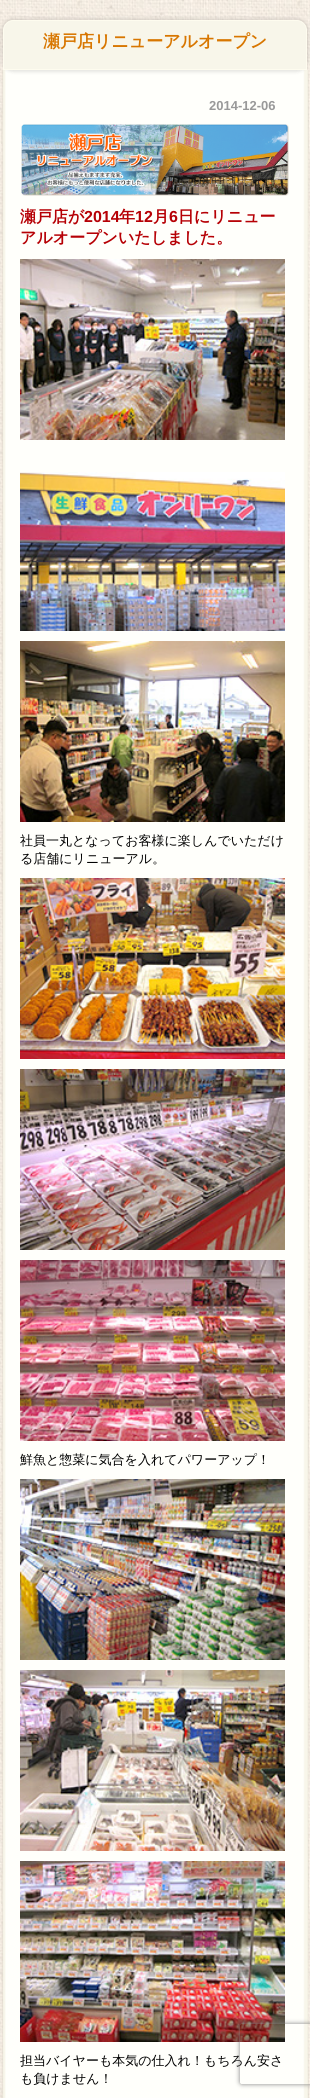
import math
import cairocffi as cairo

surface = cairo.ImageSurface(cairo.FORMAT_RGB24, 310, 2098)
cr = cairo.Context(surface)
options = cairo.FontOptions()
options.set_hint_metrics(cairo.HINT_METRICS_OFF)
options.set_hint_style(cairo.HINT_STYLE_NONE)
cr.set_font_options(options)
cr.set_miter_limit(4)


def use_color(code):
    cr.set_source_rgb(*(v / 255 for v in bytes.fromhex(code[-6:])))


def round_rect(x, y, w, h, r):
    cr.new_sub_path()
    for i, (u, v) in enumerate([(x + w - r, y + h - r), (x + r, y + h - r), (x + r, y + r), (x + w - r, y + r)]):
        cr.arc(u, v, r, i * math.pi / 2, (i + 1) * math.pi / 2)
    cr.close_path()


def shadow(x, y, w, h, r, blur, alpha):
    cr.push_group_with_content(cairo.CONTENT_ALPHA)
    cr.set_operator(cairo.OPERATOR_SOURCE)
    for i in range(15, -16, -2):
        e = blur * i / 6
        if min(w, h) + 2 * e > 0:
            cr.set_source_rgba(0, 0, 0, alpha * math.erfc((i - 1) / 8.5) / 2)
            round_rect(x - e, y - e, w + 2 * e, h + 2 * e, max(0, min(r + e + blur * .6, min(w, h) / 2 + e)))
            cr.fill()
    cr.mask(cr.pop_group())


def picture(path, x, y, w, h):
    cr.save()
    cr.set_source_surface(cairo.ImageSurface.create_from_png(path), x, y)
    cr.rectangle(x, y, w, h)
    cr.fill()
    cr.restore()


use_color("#ffffff")
cr.paint()
picture("img1.png", 0, 0, 310, 2098)
picture("img2.png", 1, 70, 308, 2028)
use_color("#000000")
shadow(1, 18, 308, 54, 12, 1.5, 0.1)
use_color("#f8f6ea")
cr.new_path()
cr.move_to(13, 20.5)
cr.line_to(297, 20.5)
cr.curve_to(302, 20.5, 306.5, 25, 306.5, 30)
cr.line_to(306.5, 69.5)
cr.line_to(3.5, 69.5)
cr.line_to(3.5, 30)
cr.curve_to(3.5, 25, 8, 20.5, 13, 20.5)
cr.close_path()
cr.fill_preserve()
use_color("#fefcef")
cr.set_line_width(1)
cr.stroke()
cr.select_font_face("WenQuanYi Zen Hei", cairo.FONT_SLANT_NORMAL, cairo.FONT_WEIGHT_BOLD)
cr.set_font_size(17)
use_color("#d87600")
cr.move_to(43, 47)
cr.show_text("瀬戸店リニューアルオープン")
cr.select_font_face("Liberation Sans", cairo.FONT_SLANT_NORMAL, cairo.FONT_WEIGHT_BOLD)
cr.set_font_size(13)
use_color("#999999")
cr.move_to(209, 110)
cr.show_text("2014-12-06")
picture("img3.png", 21, 124, 268, 72)
cr.select_font_face("WenQuanYi Zen Hei", cairo.FONT_SLANT_NORMAL, cairo.FONT_WEIGHT_BOLD)
cr.set_font_size(16)
use_color("#b60005")
cr.move_to(20, 222)
cr.show_text("瀬戸店が")
cr.select_font_face("Liberation Sans", cairo.FONT_SLANT_NORMAL, cairo.FONT_WEIGHT_BOLD)
cr.move_to(84, 222)
cr.show_text("2014")
cr.select_font_face("WenQuanYi Zen Hei", cairo.FONT_SLANT_NORMAL, cairo.FONT_WEIGHT_BOLD)
cr.move_to(119, 222)
cr.show_text("年")
cr.select_font_face("Liberation Sans", cairo.FONT_SLANT_NORMAL, cairo.FONT_WEIGHT_BOLD)
cr.move_to(135, 222)
cr.show_text("12")
cr.select_font_face("WenQuanYi Zen Hei", cairo.FONT_SLANT_NORMAL, cairo.FONT_WEIGHT_BOLD)
cr.move_to(153, 222)
cr.show_text("月")
cr.select_font_face("Liberation Sans", cairo.FONT_SLANT_NORMAL, cairo.FONT_WEIGHT_BOLD)
cr.move_to(169, 222)
cr.show_text("6")
cr.select_font_face("WenQuanYi Zen Hei", cairo.FONT_SLANT_NORMAL, cairo.FONT_WEIGHT_BOLD)
cr.move_to(178, 222)
cr.show_text("日にリニュー")
cr.move_to(20, 243)
cr.show_text("アルオープンいたしました。")
picture("img4.png", 20, 259, 265, 181)
picture("img5.png", 20, 472, 265, 159)
picture("img6.png", 20, 641, 265, 181)
cr.select_font_face("WenQuanYi Zen Hei Medium")
cr.set_font_size(13)
use_color("#000000")
cr.move_to(20, 845)
cr.show_text("社員一丸となってお客様に楽しんでいただけ")
cr.move_to(20, 863)
cr.show_text("る店舗にリニューアル。")
picture("img7.png", 20, 878, 265, 181)
picture("img8.png", 20, 1069, 265, 181)
picture("img9.png", 20, 1260, 265, 181)
cr.move_to(20, 1464)
cr.show_text("鮮魚と惣菜に気合を入れてパワーアップ！")
picture("img10.png", 20, 1479, 265, 181)
picture("img11.png", 20, 1670, 265, 181)
picture("img12.png", 20, 1861, 265, 181)
cr.move_to(20, 2065)
cr.show_text("担当バイヤーも本気の仕入れ！もちろん安さ")
cr.move_to(20, 2083)
cr.show_text("も負けません！")
cr.save()
cr.set_fill_rule(cairo.FILL_RULE_EVEN_ODD)
cr.new_path()
cr.move_to(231, 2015)
cr.line_to(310, 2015)
cr.line_to(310, 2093)
cr.line_to(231, 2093)
cr.close_path()
cr.move_to(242, 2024)
cr.line_to(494, 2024)
cr.curve_to(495, 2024, 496, 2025, 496, 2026)
cr.line_to(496, 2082)
cr.curve_to(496, 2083, 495, 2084, 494, 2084)
cr.line_to(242, 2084)
cr.curve_to(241, 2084, 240, 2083, 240, 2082)
cr.line_to(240, 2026)
cr.curve_to(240, 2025, 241, 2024, 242, 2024)
cr.close_path()
cr.clip()
use_color("#808080")
shadow(240, 2024, 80, 60, 2, 2.5, 1)
cr.restore()
surface.write_to_png("result.png")
